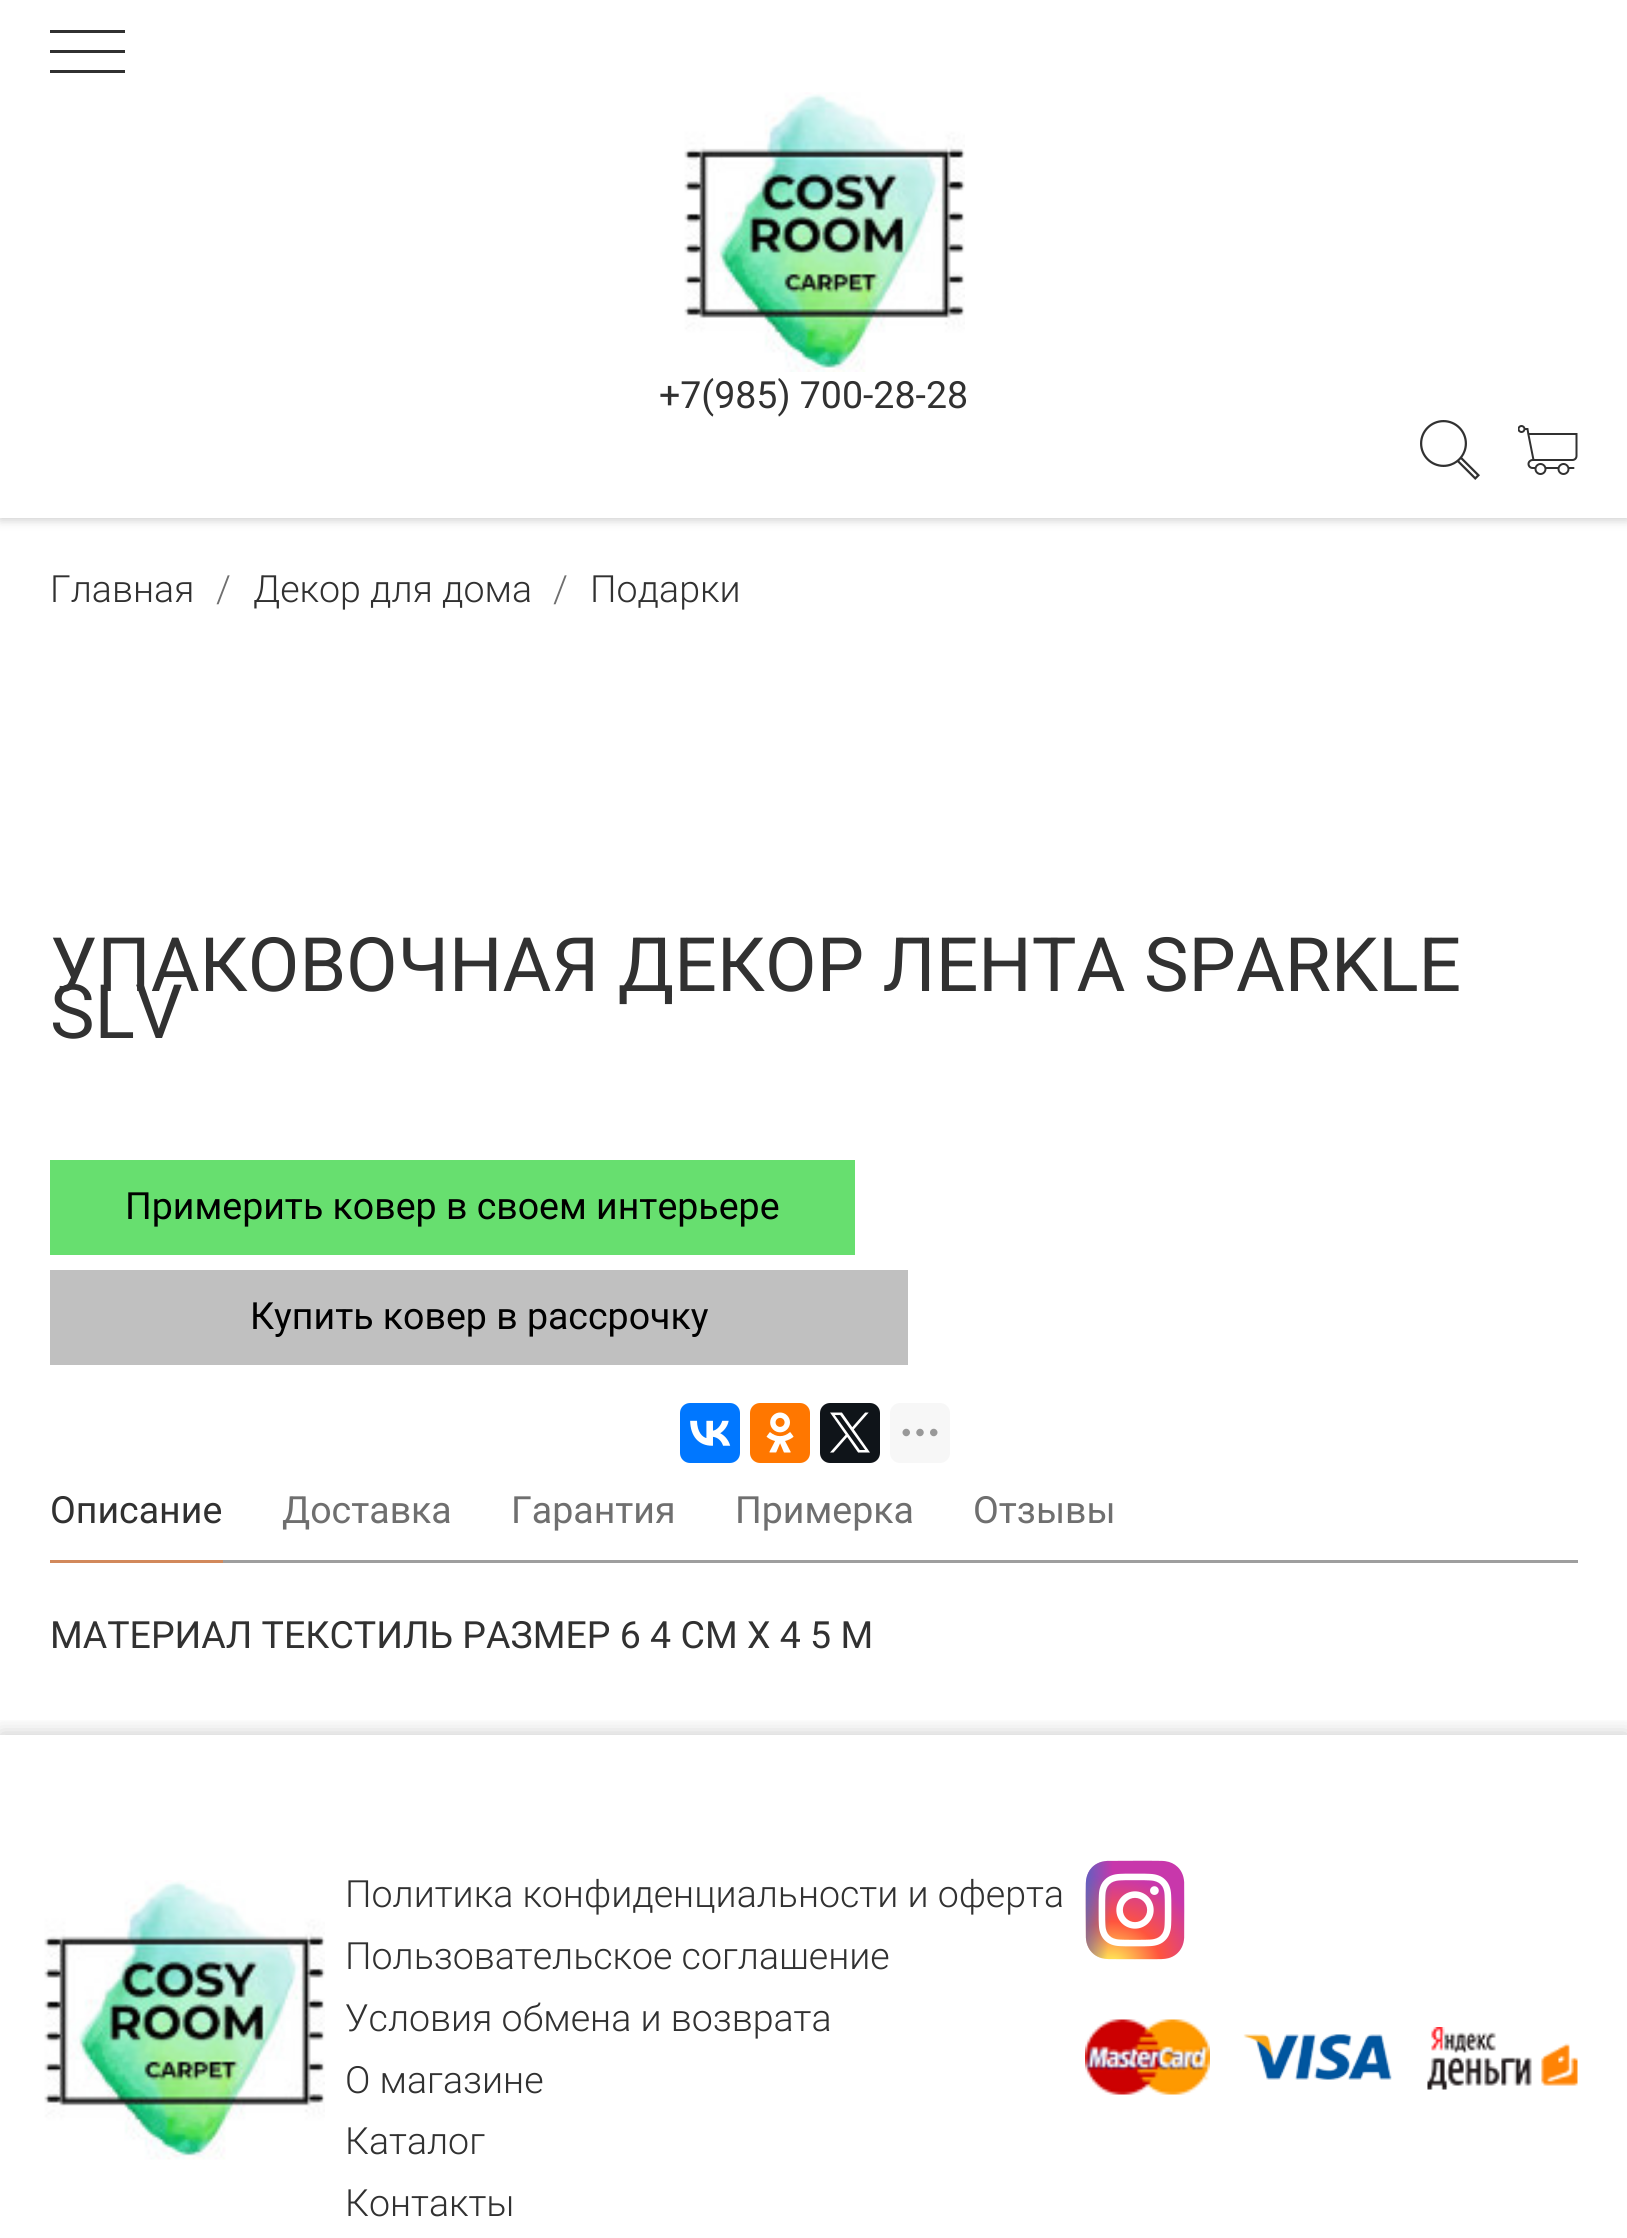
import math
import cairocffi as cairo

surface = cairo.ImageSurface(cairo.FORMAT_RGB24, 1627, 2238)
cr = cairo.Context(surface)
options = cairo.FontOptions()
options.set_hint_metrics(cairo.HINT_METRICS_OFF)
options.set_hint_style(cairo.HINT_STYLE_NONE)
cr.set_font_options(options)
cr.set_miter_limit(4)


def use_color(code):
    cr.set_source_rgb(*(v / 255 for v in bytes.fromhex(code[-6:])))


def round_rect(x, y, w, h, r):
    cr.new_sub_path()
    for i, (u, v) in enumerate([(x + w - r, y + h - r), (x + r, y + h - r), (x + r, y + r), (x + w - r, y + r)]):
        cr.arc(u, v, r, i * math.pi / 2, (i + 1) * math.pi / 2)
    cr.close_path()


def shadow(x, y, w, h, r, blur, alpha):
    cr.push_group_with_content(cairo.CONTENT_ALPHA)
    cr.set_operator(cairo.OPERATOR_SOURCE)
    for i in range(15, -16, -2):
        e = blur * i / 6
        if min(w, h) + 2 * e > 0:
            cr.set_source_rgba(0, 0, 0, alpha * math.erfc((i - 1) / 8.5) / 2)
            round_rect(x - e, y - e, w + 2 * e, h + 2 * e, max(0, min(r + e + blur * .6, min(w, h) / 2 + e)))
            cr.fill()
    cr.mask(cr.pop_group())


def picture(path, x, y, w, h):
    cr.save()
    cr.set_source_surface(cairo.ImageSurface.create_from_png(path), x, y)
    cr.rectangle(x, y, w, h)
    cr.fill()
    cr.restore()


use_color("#ffffff")
cr.paint()
use_color("#000000")
shadow(0, -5, 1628, 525, 0, 5, 0.2)
use_color("#ffffff")
cr.rectangle(0, 0, 1627, 518)
cr.fill()
use_color("#313131")
cr.rectangle(50, 30, 75, 3)
cr.fill()
cr.rectangle(50, 50, 75, 3)
cr.fill()
cr.rectangle(50, 70, 75, 3)
cr.fill()
picture("img1.png", 684, 92, 281, 280)
cr.select_font_face("Roboto")
cr.set_font_size(37.5)
cr.move_to(659, 408)
cr.show_text("+7(985) 700-28-28")
picture("img2.png", 1420, 420, 60, 60)
picture("img3.png", 1518, 425, 60, 50)
cr.select_font_face("Roboto Light")
cr.move_to(50, 602)
cr.show_text("Главная")
use_color("#6f6f6f")
cr.move_to(216, 602)
cr.show_text("/")
use_color("#313131")
cr.move_to(253, 602)
cr.show_text("Декор для дома")
use_color("#6f6f6f")
cr.move_to(553, 602)
cr.show_text("/")
use_color("#313131")
cr.move_to(590, 602)
cr.show_text("Подарки")
cr.select_font_face("Roboto")
cr.set_font_size(75)
cr.move_to(50, 991)
cr.show_text("УПАКОВОЧНАЯ ДЕКОР ЛЕНТА SPARKLE")
cr.move_to(50, 1038)
cr.show_text("SLV")
use_color("#67df6f")
cr.rectangle(50, 1160, 805, 95)
cr.fill()
cr.set_font_size(37.5)
use_color("#000000")
cr.move_to(125, 1219)
cr.show_text("Примерить ковер в своем интерьере")
use_color("#c0c0c0")
cr.rectangle(50, 1270, 858, 95)
cr.fill()
use_color("#000000")
cr.move_to(250, 1329)
cr.show_text("Купить ковер в рассрочку")
use_color("#0077ff")
round_rect(680, 1403, 60, 60, 10)
cr.fill()
picture("img4.png", 690, 1420, 41, 26)
use_color("#ff7700")
round_rect(750, 1403, 60, 60, 10)
cr.fill()
picture("img5.png", 766, 1412, 28, 41)
use_color("#0f1419")
round_rect(820, 1403, 60, 60, 10)
cr.fill()
picture("img6.png", 830, 1412, 40, 41)
use_color("#f7f7f7")
round_rect(890, 1403, 60, 60, 10)
cr.fill()
picture("img7.png", 902, 1428, 36, 9)
use_color("#9e9e9e")
cr.rectangle(223, 1560, 1355, 3)
cr.fill()
use_color("#d2895b")
cr.rectangle(50, 1560, 173, 3)
cr.fill()
use_color("#313131")
cr.move_to(50, 1523)
cr.show_text("Описание")
use_color("#6f6f6f")
cr.move_to(282, 1523)
cr.show_text("Доставка")
cr.move_to(511, 1523)
cr.show_text("Гарантия")
cr.move_to(735, 1523)
cr.show_text("Примерка")
cr.move_to(973, 1523)
cr.show_text("Отзывы")
use_color("#313131")
cr.move_to(50, 1648)
cr.show_text("МАТЕРИАЛ ТЕКСТИЛЬ РАЗМЕР 6 4 СМ Х 4 5 М")
cr.save()
cr.rectangle(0, 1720, 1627, 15)
cr.clip()
use_color("#000000")
shadow(0, 1733, 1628, 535, 0, 10, 0.2)
cr.restore()
picture("img8.png", 44, 1880, 281, 280)
cr.select_font_face("Roboto Light")
cr.move_to(345, 1907)
cr.show_text("Политика конфиденциальности и оферта")
cr.move_to(345, 1969)
cr.show_text("Пользовательское соглашение")
cr.move_to(345, 2031)
cr.show_text("Условия обмена и возврата")
cr.move_to(345, 2093)
cr.show_text("О магазине")
cr.move_to(345, 2154)
cr.show_text("Каталог")
cr.move_to(345, 2216)
cr.show_text("Контакты")
picture("img9.png", 1085, 1860, 100, 100)
picture("img10.png", 1085, 2019, 125, 76)
picture("img11.png", 1243, 2034, 149, 46)
picture("img12.png", 1427, 2027, 151, 63)
surface.write_to_png("result.png")
